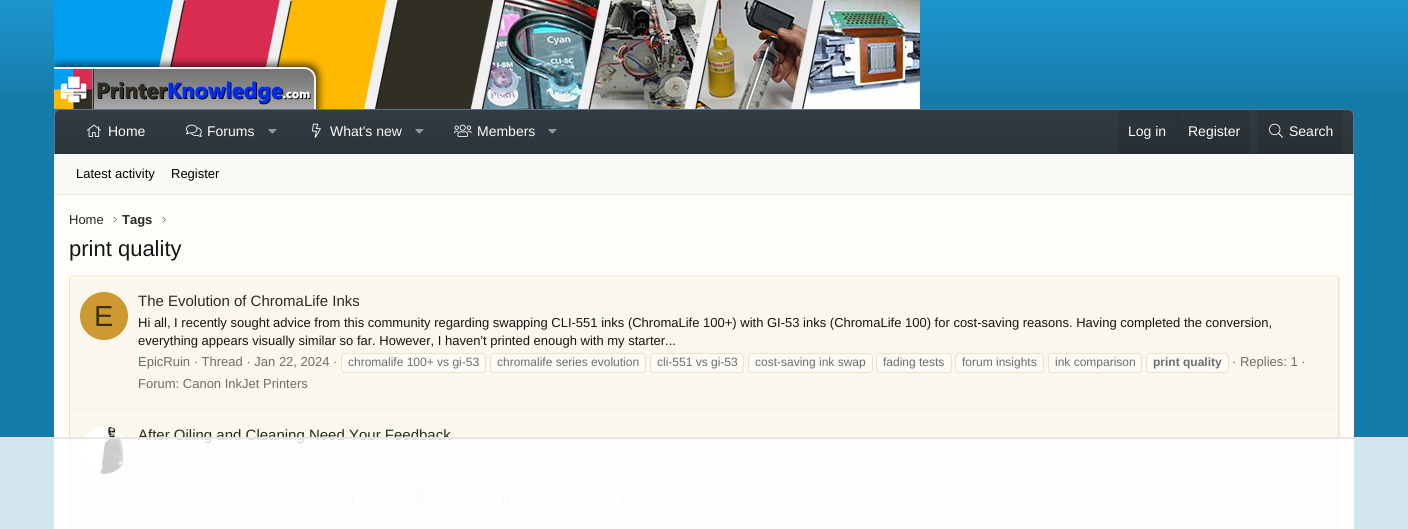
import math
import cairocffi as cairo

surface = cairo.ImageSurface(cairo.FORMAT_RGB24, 1408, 529)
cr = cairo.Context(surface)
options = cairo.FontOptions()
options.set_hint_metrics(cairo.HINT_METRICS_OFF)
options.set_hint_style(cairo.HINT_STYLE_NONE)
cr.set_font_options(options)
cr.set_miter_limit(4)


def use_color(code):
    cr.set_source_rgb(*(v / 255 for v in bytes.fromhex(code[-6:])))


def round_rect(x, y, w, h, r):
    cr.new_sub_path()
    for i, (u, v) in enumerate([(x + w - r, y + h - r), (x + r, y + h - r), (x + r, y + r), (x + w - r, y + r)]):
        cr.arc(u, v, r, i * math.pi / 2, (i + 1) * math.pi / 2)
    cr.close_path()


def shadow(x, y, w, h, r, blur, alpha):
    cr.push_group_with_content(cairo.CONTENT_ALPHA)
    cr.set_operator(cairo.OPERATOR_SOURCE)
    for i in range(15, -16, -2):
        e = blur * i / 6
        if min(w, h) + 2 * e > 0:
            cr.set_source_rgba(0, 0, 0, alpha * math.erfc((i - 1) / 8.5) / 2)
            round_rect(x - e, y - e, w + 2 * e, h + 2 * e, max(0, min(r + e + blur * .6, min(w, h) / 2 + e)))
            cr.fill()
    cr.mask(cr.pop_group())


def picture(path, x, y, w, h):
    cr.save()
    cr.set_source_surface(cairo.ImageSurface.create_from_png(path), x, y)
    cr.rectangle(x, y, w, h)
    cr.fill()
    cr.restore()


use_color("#177baa")
cr.paint()
gradient = cairo.LinearGradient(704, 0, 704, 100)
gradient.add_color_stop_rgba(0, 0.11, 0.584, 0.808, 1)
gradient.add_color_stop_rgba(1, 0.09, 0.482, 0.667, 1)
cr.set_source(gradient)
cr.rectangle(0, 0, 1408, 93)
cr.fill()
picture("img1.png", 54, 0, 866, 109)
gradient = cairo.LinearGradient(704, 110, 704, 154)
gradient.add_color_stop_rgba(0, 0.196, 0.235, 0.267, 1)
gradient.add_color_stop_rgba(1, 0.173, 0.204, 0.231, 1)
cr.set_source(gradient)
cr.new_path()
cr.move_to(60, 110)
cr.line_to(1348, 110)
cr.curve_to(1351, 110, 1353, 112, 1353, 115)
cr.line_to(1353, 154)
cr.line_to(55, 154)
cr.line_to(55, 115)
cr.curve_to(55, 112, 57, 110, 60, 110)
cr.close_path()
cr.fill()
use_color("#5d7384")
cr.set_fill_rule(cairo.FILL_RULE_EVEN_ODD)
cr.new_path()
cr.move_to(60, 109)
cr.line_to(1348, 109)
cr.curve_to(1351, 109, 1354, 112, 1354, 115)
cr.line_to(1354, 154)
cr.line_to(54, 154)
cr.line_to(54, 115)
cr.curve_to(54, 112, 57, 109, 60, 109)
cr.close_path()
cr.move_to(60, 110)
cr.line_to(1348, 110)
cr.curve_to(1351, 110, 1353, 112, 1353, 115)
cr.line_to(1353, 154)
cr.line_to(55, 154)
cr.line_to(55, 115)
cr.curve_to(55, 112, 57, 110, 60, 110)
cr.close_path()
cr.fill()
picture("img2.png", 86, 124, 15, 13)
cr.select_font_face("Liberation Sans")
cr.set_font_size(14)
use_color("#fdfbf5")
cr.move_to(108, 136)
cr.show_text("Home")
picture("img3.png", 186, 124, 16, 13)
cr.move_to(207, 136)
cr.show_text("Forums")
picture("img4.png", 268, 129, 9, 5)
picture("img5.png", 312, 123, 9, 15)
cr.move_to(330, 136)
cr.show_text("What's new")
picture("img4.png", 415, 129, 9, 5)
picture("img6.png", 454, 124, 18, 13)
cr.move_to(477, 136)
cr.show_text("Members")
picture("img4.png", 548, 129, 9, 5)
cr.set_source_rgba(0.078, 0.078, 0.078, 0.15)
cr.new_path()
cr.move_to(1122, 110)
cr.line_to(1246, 110)
cr.curve_to(1248, 110, 1250, 112, 1250, 114)
cr.line_to(1250, 154)
cr.line_to(1118, 154)
cr.line_to(1118, 114)
cr.curve_to(1118, 112, 1120, 110, 1122, 110)
cr.close_path()
cr.fill()
use_color("#fdfbf5")
cr.move_to(1128, 136)
cr.show_text("Log in")
cr.set_source_rgba(0.078, 0.078, 0.078, 0.15)
cr.rectangle(1177, 110, 1, 44)
cr.fill()
use_color("#fdfbf5")
cr.move_to(1188, 136)
cr.show_text("Register")
cr.set_source_rgba(0.078, 0.078, 0.078, 0.15)
cr.new_path()
cr.move_to(1261, 110)
cr.line_to(1339, 110)
cr.curve_to(1341, 110, 1343, 112, 1343, 114)
cr.line_to(1343, 154)
cr.line_to(1257, 154)
cr.line_to(1257, 114)
cr.curve_to(1257, 112, 1259, 110, 1261, 110)
cr.close_path()
cr.fill()
picture("img7.png", 1269, 123, 14, 15)
use_color("#fdfbf5")
cr.move_to(1289, 136)
cr.show_text("Search")
use_color("#fafbf7")
cr.rectangle(54, 154, 1300, 40)
cr.fill()
use_color("#e5ead5")
cr.rectangle(54, 194, 1300, 1)
cr.fill()
cr.set_font_size(13)
use_color("#000000")
cr.move_to(76, 178)
cr.show_text("Latest activity")
cr.move_to(171, 178)
cr.show_text("Register")
use_color("#fffdf9")
cr.rectangle(54, 195, 1300, 334)
cr.fill()
use_color("#272c1f")
cr.move_to(69, 224)
cr.show_text("Home")
picture("img8.png", 113, 216, 4, 7)
cr.select_font_face("Liberation Sans", cairo.FONT_SLANT_NORMAL, cairo.FONT_WEIGHT_BOLD)
cr.move_to(122, 224)
cr.show_text("Tags")
picture("img8.png", 162, 216, 4, 7)
cr.select_font_face("Liberation Sans")
cr.set_font_size(22)
use_color("#141414")
cr.move_to(69, 256)
cr.show_text("print quality")
use_color("#000000")
shadow(71, 277, 1270, 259, 4, 1, 0.04)
use_color("#fbf7ed")
round_rect(69, 275, 1270, 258, 4)
cr.fill()
cr.new_path()
cr.move_to(70.5, 276.5)
cr.line_to(73, 275.5)
cr.line_to(1335, 275.5)
cr.line_to(1337.5, 276.5)
use_color("#f2eee3")
cr.set_line_width(1)
cr.stroke()
cr.new_path()
cr.move_to(1337.5, 276.5)
cr.curve_to(1338, 277, 1338.5, 278, 1338.5, 279)
cr.line_to(1338.5, 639)
cr.curve_to(1338.5, 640, 1338, 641, 1337.5, 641.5)
use_color("#e9e2ce")
cr.stroke()
cr.new_path()
cr.move_to(70.5, 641.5)
cr.curve_to(70, 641, 69.5, 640, 69.5, 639)
cr.line_to(69.5, 279)
cr.curve_to(69.5, 278, 70, 277, 70.5, 276.5)
cr.stroke()
use_color("#cc9933")
cr.arc(104, 316, 24, 0, 2 * math.pi)
cr.fill()
cr.set_font_size(29)
use_color("#3d2e0f")
cr.move_to(94, 326)
cr.show_text("E")
cr.set_font_size(15)
use_color("#272c1f")
cr.move_to(138, 306)
cr.show_text("The Evolution of ChromaLife Inks")
cr.set_font_size(13)
use_color("#141414")
cr.move_to(138, 327)
cr.show_text("Hi all, I recently sought advice from this community regarding swapping CLI-551 inks (ChromaLife 100+) with GI-53 inks (ChromaLife 100) for cost-saving reasons. Having completed the conversion,")
cr.move_to(138, 345)
cr.show_text("everything appears visually similar so far. However, I haven't printed enough with my starter...")
use_color("#6d6d6d")
cr.move_to(138, 366)
cr.show_text("EpicRuin · Thread · Jan 22, 2024 ·")
use_color("#fdfbf5")
round_rect(341.5, 353.5, 144, 19, 3.5)
cr.fill_preserve()
use_color("#e9e2ce")
cr.stroke()
cr.set_font_size(12)
use_color("#6d6d6d")
cr.move_to(348, 366)
cr.show_text("chromalife 100+ vs gi-53")
use_color("#fdfbf5")
round_rect(490.5, 353.5, 155, 19, 3.5)
cr.fill_preserve()
use_color("#e9e2ce")
cr.stroke()
use_color("#6d6d6d")
cr.move_to(497, 366)
cr.show_text("chromalife series evolution")
use_color("#fdfbf5")
round_rect(650.5, 353.5, 93, 19, 3.5)
cr.fill_preserve()
use_color("#e9e2ce")
cr.stroke()
use_color("#6d6d6d")
cr.move_to(657, 366)
cr.show_text("cli-551 vs gi-53")
use_color("#fdfbf5")
round_rect(748.5, 353.5, 124, 19, 3.5)
cr.fill_preserve()
use_color("#e9e2ce")
cr.stroke()
use_color("#6d6d6d")
cr.move_to(755, 366)
cr.show_text("cost-saving ink swap")
use_color("#fdfbf5")
round_rect(876.5, 353.5, 75, 19, 3.5)
cr.fill_preserve()
use_color("#e9e2ce")
cr.stroke()
use_color("#6d6d6d")
cr.move_to(883, 366)
cr.show_text("fading tests")
use_color("#fdfbf5")
round_rect(955.5, 353.5, 88, 19, 3.5)
cr.fill_preserve()
use_color("#e9e2ce")
cr.stroke()
use_color("#6d6d6d")
cr.move_to(962, 366)
cr.show_text("forum insights")
use_color("#fdfbf5")
round_rect(1048.5, 353.5, 93, 19, 3.5)
cr.fill_preserve()
use_color("#e9e2ce")
cr.stroke()
use_color("#6d6d6d")
cr.move_to(1055, 366)
cr.show_text("ink comparison")
use_color("#fdfbf5")
round_rect(1146.5, 353.5, 82, 19, 3.5)
cr.fill_preserve()
use_color("#e9e2ce")
cr.stroke()
cr.select_font_face("Liberation Sans", cairo.FONT_SLANT_NORMAL, cairo.FONT_WEIGHT_BOLD)
use_color("#6d6d6d")
cr.move_to(1153, 366)
cr.show_text("print quality")
cr.select_font_face("Liberation Sans")
cr.set_font_size(13)
cr.move_to(1232, 366)
cr.show_text("· Replies: 1 ·")
cr.move_to(138, 388)
cr.show_text("Forum: Canon InkJet Printers")
use_color("#f2eee3")
cr.rectangle(70, 409, 1268, 1)
cr.fill()
picture("img9.png", 80, 426, 48, 48)
cr.set_font_size(15)
use_color("#272c1f")
cr.move_to(138, 440)
cr.show_text("After Oiling and Cleaning Need Your Feedback")
use_color("#fdfbf5")
round_rect(352.5, 488.5, 65, 19, 3.5)
cr.fill_preserve()
use_color("#e9e2ce")
cr.stroke()
use_color("#fdfbf5")
round_rect(422.5, 488.5, 81, 19, 3.5)
cr.fill_preserve()
use_color("#e9e2ce")
cr.stroke()
use_color("#fdfbf5")
round_rect(508.5, 488.5, 114, 19, 3.5)
cr.fill_preserve()
use_color("#e9e2ce")
cr.stroke()
use_color("#f2eee3")
cr.rectangle(70, 526, 1268, 1)
cr.fill()
cr.set_source_rgba(1, 1, 1, 0.8)
cr.rectangle(0, 437, 1408, 92)
cr.fill()
cr.set_source_rgba(0.882, 0.882, 0.882, 0.8)
cr.rectangle(0, 437, 1408, 2)
cr.fill()
surface.write_to_png("result.png")
